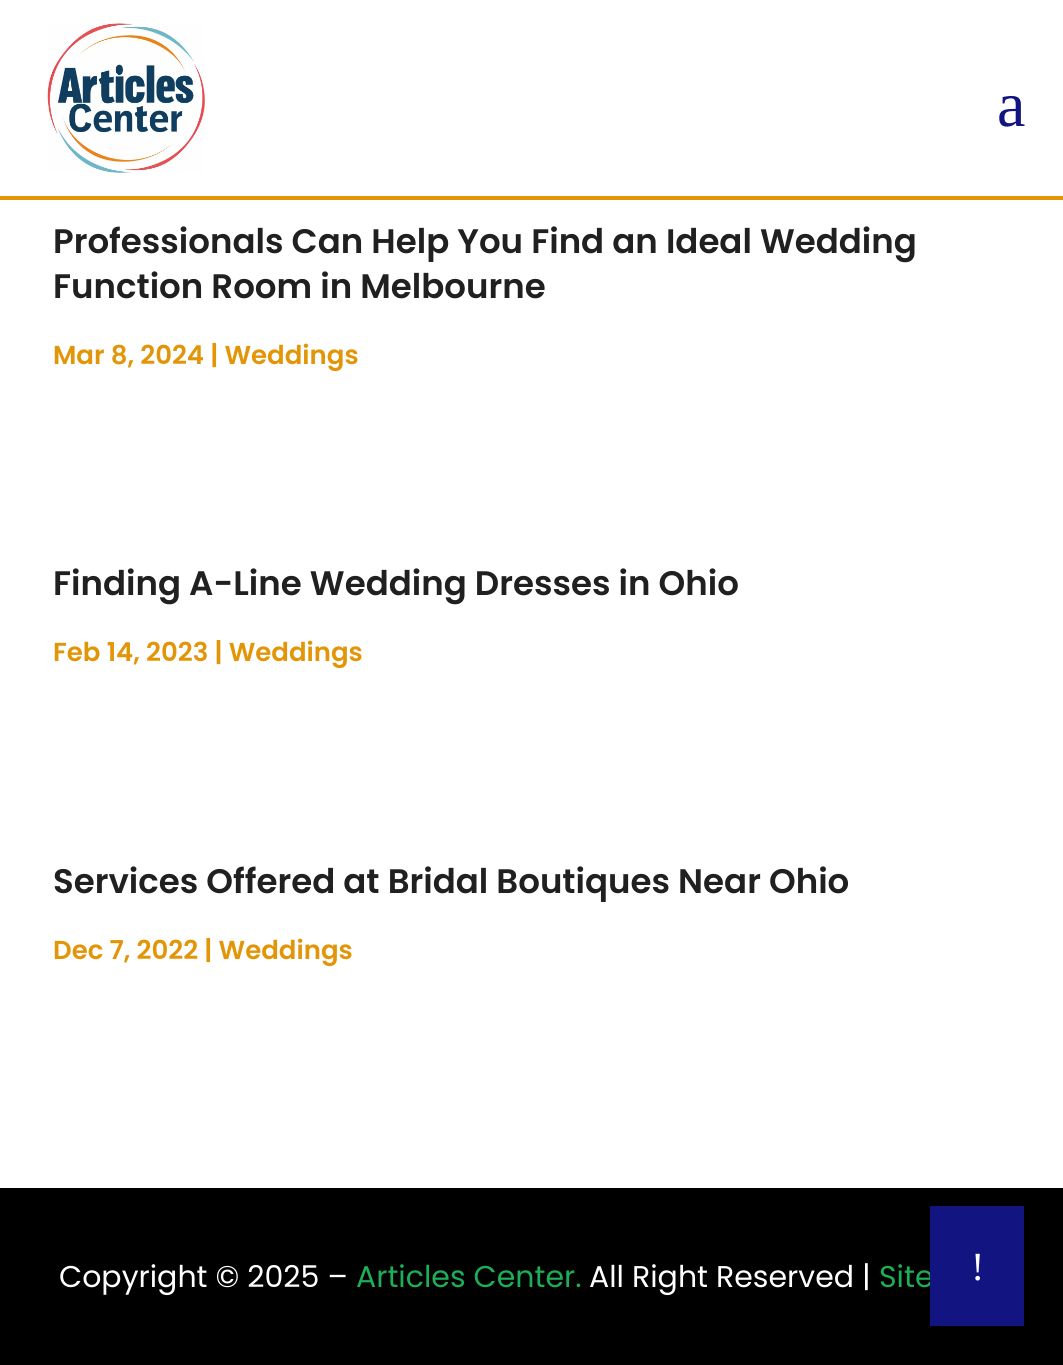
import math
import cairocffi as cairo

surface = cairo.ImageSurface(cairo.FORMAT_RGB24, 1063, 1365)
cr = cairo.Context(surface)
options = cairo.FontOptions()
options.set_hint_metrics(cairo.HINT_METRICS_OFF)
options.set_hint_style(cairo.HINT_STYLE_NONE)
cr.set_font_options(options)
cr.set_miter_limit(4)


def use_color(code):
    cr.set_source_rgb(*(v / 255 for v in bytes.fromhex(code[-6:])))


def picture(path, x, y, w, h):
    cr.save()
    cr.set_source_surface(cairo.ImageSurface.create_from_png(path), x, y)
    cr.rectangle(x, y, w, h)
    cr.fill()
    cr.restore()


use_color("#ffffff")
cr.paint()
use_color("#e29507")
cr.rectangle(0, 196, 1063, 4)
cr.fill()
picture("img1.png", 47, 23, 158, 150)
cr.select_font_face("Liberation Serif")
cr.set_font_size(64)
use_color("#121481")
cr.move_to(997, 126)
cr.show_text("a")
cr.select_font_face("Poppins SemiBold")
cr.set_font_size(34)
use_color("#202020")
cr.move_to(53, 253)
cr.show_text("Professionals Can Help You Find an Ideal Wedding")
cr.move_to(53, 298)
cr.show_text("Function Room in Melbourne")
cr.set_font_size(26)
use_color("#e29507")
cr.move_to(53, 364)
cr.show_text("Mar 8, 2024 | Weddings")
cr.set_font_size(34)
use_color("#202020")
cr.move_to(53, 595)
cr.show_text("Finding A-Line Wedding Dresses in Ohio")
cr.set_font_size(26)
use_color("#e29507")
cr.move_to(53, 661)
cr.show_text("Feb 14, 2023 | Weddings")
cr.set_font_size(34)
use_color("#202020")
cr.move_to(53, 893)
cr.show_text("Services Offered at Bridal Boutiques Near Ohio")
cr.set_font_size(26)
use_color("#e29507")
cr.move_to(53, 959)
cr.show_text("Dec 7, 2022 | Weddings")
use_color("#000000")
cr.rectangle(0, 1188, 1063, 177)
cr.fill()
cr.select_font_face("Poppins")
cr.set_font_size(30)
use_color("#ffffff")
cr.move_to(59, 1287)
cr.show_text("Copyright © 2025 –")
use_color("#1caf57")
cr.move_to(356, 1287)
cr.show_text("Articles Center.")
use_color("#ffffff")
cr.move_to(589, 1287)
cr.show_text("All Right Reserved |")
use_color("#1caf57")
cr.move_to(879, 1287)
cr.show_text("Site")
use_color("#121481")
cr.rectangle(930, 1206, 94, 120)
cr.fill()
cr.select_font_face("Liberation Serif")
cr.set_font_size(40)
use_color("#ffffff")
cr.move_to(971, 1280)
cr.show_text("!")
surface.write_to_png("result.png")
